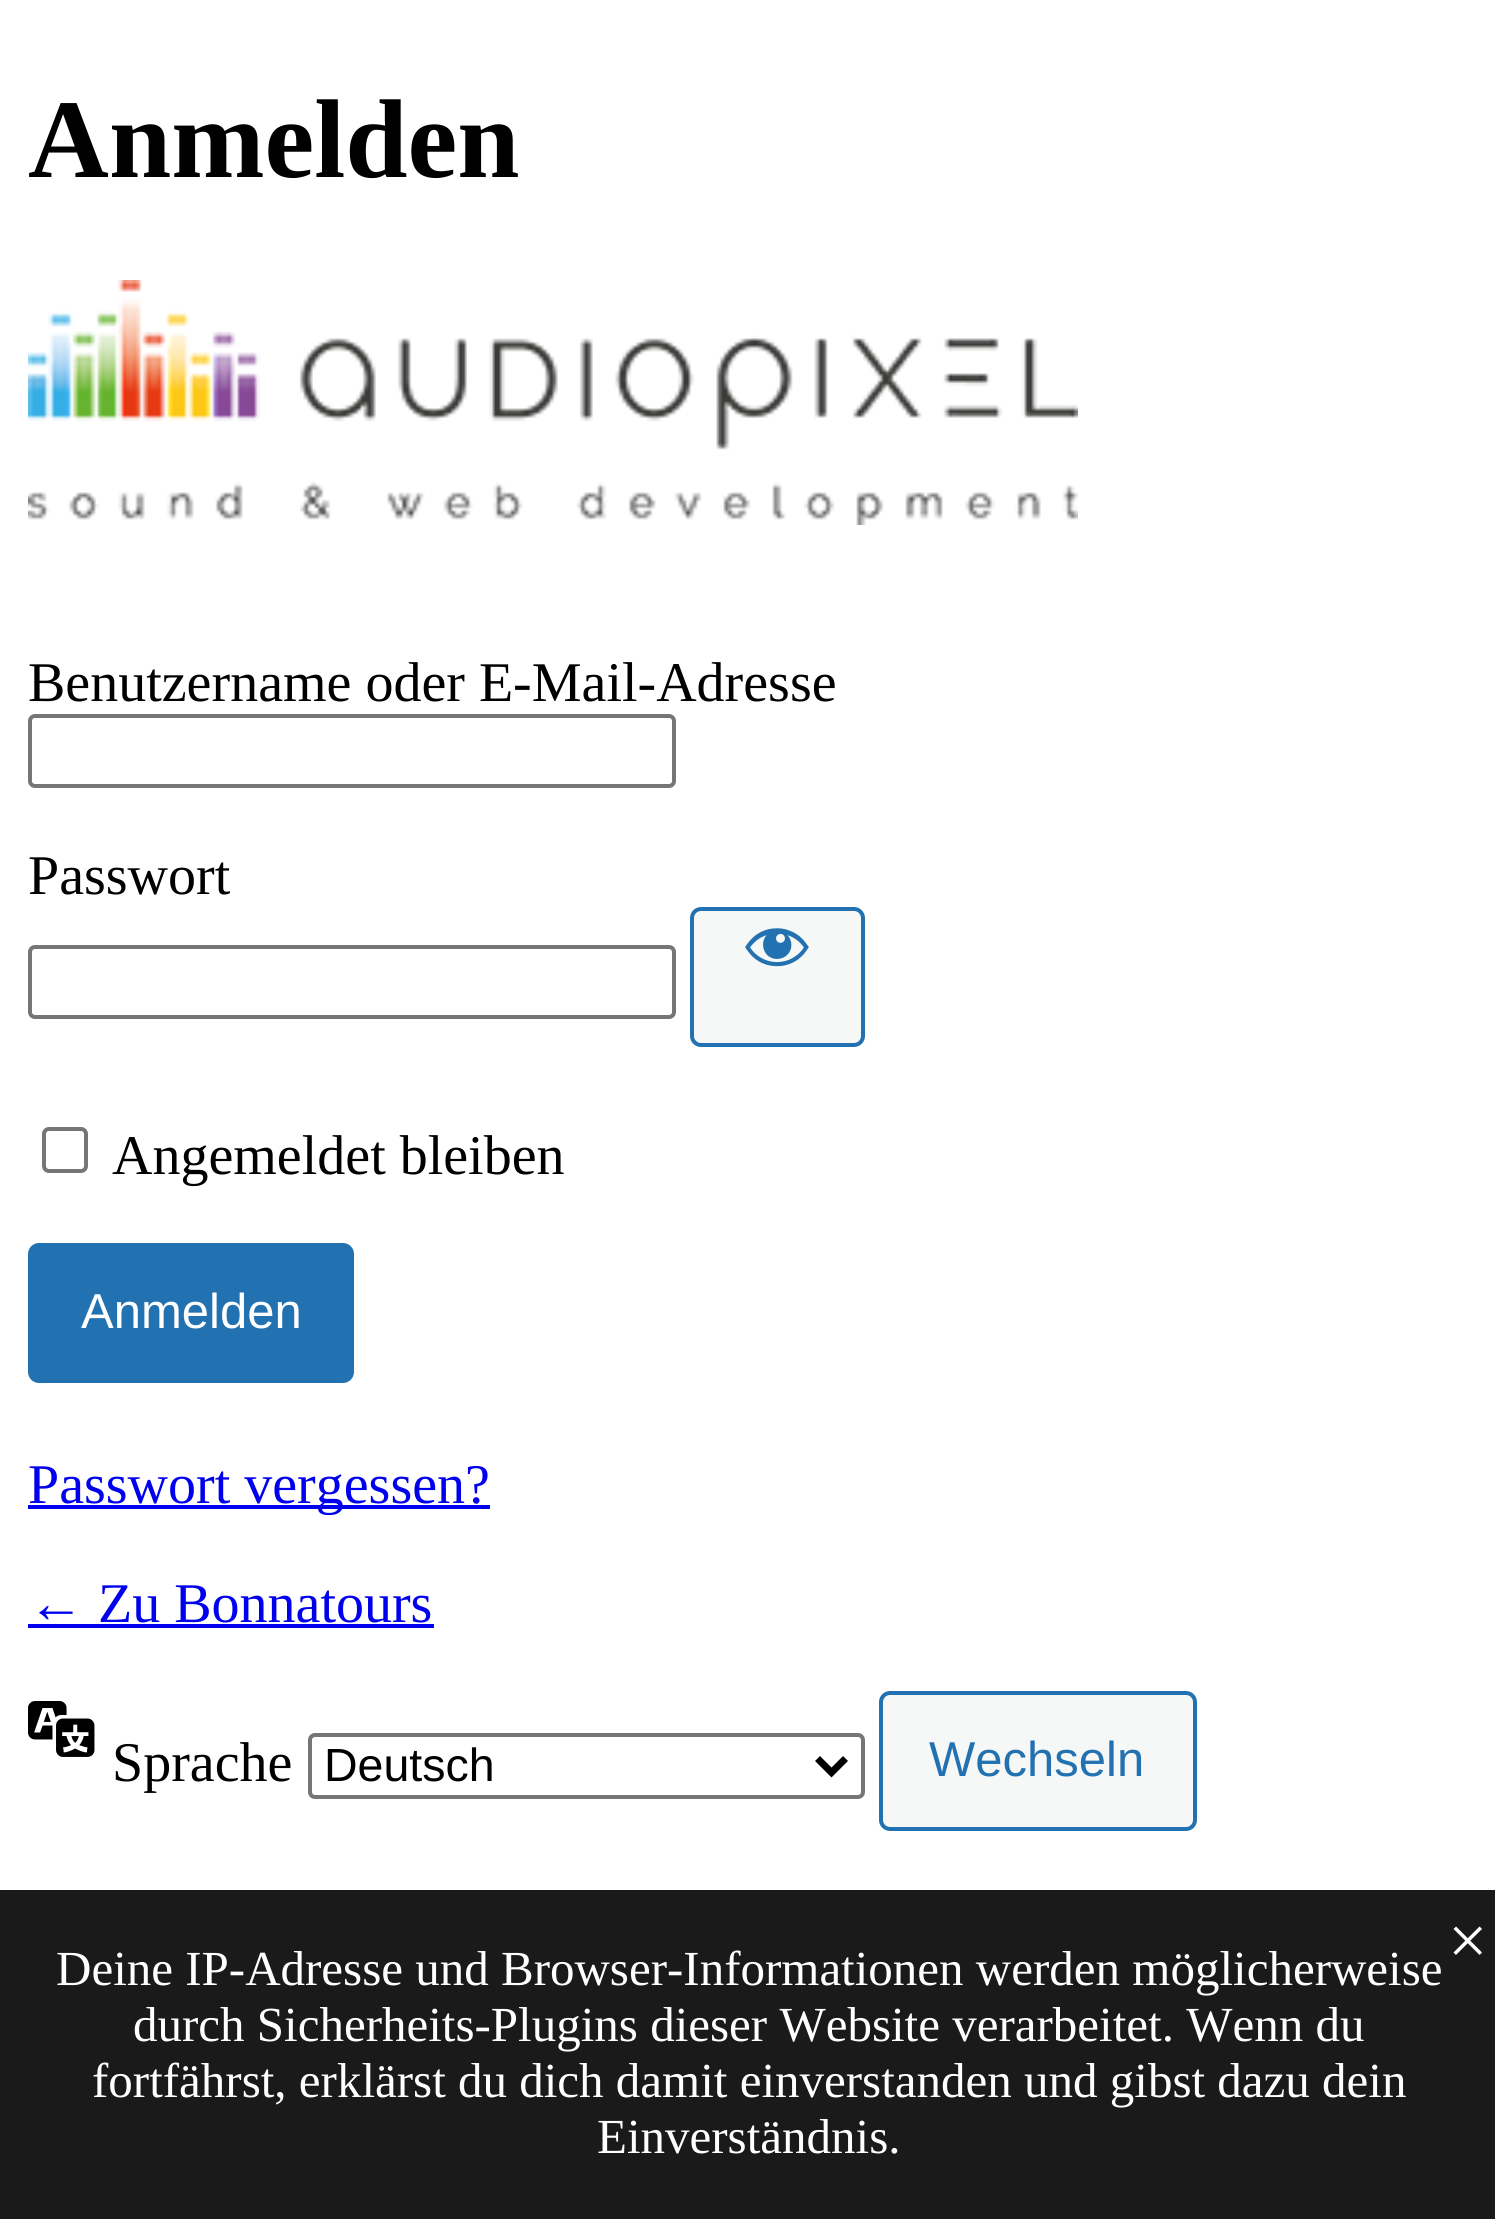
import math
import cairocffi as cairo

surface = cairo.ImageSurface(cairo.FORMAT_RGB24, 1495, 2219)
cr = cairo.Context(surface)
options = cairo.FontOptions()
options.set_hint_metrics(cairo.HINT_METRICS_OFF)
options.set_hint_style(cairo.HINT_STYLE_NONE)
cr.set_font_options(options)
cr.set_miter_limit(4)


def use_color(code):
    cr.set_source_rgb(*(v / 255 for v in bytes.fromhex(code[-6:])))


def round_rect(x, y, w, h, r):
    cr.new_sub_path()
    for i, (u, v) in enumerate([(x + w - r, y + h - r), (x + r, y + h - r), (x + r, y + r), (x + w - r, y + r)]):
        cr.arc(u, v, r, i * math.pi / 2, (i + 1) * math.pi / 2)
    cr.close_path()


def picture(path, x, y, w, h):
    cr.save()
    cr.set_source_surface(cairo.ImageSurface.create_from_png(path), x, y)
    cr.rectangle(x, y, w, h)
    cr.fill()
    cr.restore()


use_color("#ffffff")
cr.paint()
cr.select_font_face("Liberation Serif", cairo.FONT_SLANT_NORMAL, cairo.FONT_WEIGHT_BOLD)
cr.set_font_size(112)
use_color("#000000")
cr.move_to(28, 177)
cr.show_text("Anmelden")
picture("img1.png", 28, 280, 1050, 245)
cr.select_font_face("Liberation Serif")
cr.set_font_size(56)
cr.move_to(28, 701)
cr.show_text("Benutzername oder E-Mail-Adresse")
round_rect(30, 716, 644, 70, 5)
use_color("#767676")
cr.set_line_width(4)
cr.stroke()
use_color("#000000")
cr.move_to(28, 894)
cr.show_text("Passwort")
round_rect(30, 947, 644, 70, 5)
use_color("#767676")
cr.stroke()
use_color("#f6f7f7")
round_rect(692, 909, 171, 136, 9)
cr.fill_preserve()
use_color("#2271b1")
cr.stroke()
picture("img2.png", 745, 928, 64, 39)
round_rect(44, 1129, 42, 42, 5)
use_color("#767676")
cr.stroke()
use_color("#000000")
cr.move_to(112, 1174)
cr.show_text("Angemeldet bleiben")
use_color("#2271b1")
round_rect(30, 1245, 322, 136, 9)
cr.fill_preserve()
cr.stroke()
cr.select_font_face("Liberation Sans")
cr.set_font_size(49)
use_color("#ffffff")
cr.move_to(81, 1328)
cr.show_text("Anmelden")
use_color("#0000ee")
cr.rectangle(28, 1505, 462, 4)
cr.fill()
cr.select_font_face("Liberation Serif")
cr.set_font_size(56)
cr.move_to(28, 1503)
cr.show_text("Passwort vergessen?")
cr.move_to(28, 1622)
cr.show_text("← Zu Bonnatours")
cr.rectangle(28, 1624, 406, 4)
cr.fill()
picture("img3.png", 28, 1701, 67, 56)
use_color("#000000")
cr.move_to(112, 1781)
cr.show_text("Sprache")
round_rect(310, 1735, 553, 62, 5)
use_color("#767676")
cr.stroke()
cr.new_path()
cr.move_to(817.5, 1758.5)
cr.line_to(831.5, 1772.5)
cr.line_to(845.5, 1758.5)
use_color("#000000")
cr.set_line_width(7)
cr.stroke()
cr.select_font_face("Liberation Sans")
cr.set_font_size(46.5)
cr.move_to(324, 1781)
cr.show_text("Deutsch")
use_color("#f6f7f7")
round_rect(881, 1693, 314, 136, 9)
cr.fill_preserve()
use_color("#2271b1")
cr.set_line_width(4)
cr.stroke()
cr.set_font_size(49)
cr.move_to(929, 1776)
cr.show_text("Wechseln")
use_color("#1a1a1a")
cr.rectangle(0, 1890, 1495, 329)
cr.fill()
cr.select_font_face("Liberation Serif")
cr.set_font_size(70)
use_color("#ffffff")
cr.move_to(1448, 1964)
cr.show_text("×")
cr.set_font_size(49)
cr.move_to(56, 1985)
cr.show_text("Deine IP-Adresse und Browser-Informationen werden möglicherweise")
cr.move_to(133, 2041)
cr.show_text("durch Sicherheits-Plugins dieser Website verarbeitet. Wenn du")
cr.move_to(92, 2097)
cr.show_text("fortfährst, erklärst du dich damit einverstanden und gibst dazu dein")
cr.move_to(597, 2153)
cr.show_text("Einverständnis.")
surface.write_to_png("result.png")
